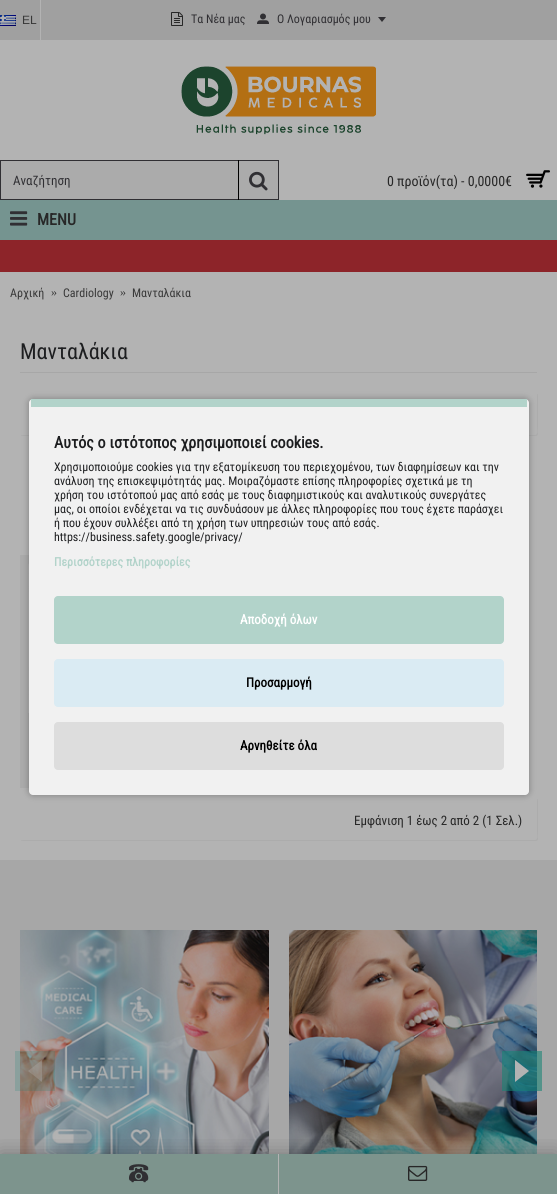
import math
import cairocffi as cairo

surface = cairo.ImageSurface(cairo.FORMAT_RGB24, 557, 1194)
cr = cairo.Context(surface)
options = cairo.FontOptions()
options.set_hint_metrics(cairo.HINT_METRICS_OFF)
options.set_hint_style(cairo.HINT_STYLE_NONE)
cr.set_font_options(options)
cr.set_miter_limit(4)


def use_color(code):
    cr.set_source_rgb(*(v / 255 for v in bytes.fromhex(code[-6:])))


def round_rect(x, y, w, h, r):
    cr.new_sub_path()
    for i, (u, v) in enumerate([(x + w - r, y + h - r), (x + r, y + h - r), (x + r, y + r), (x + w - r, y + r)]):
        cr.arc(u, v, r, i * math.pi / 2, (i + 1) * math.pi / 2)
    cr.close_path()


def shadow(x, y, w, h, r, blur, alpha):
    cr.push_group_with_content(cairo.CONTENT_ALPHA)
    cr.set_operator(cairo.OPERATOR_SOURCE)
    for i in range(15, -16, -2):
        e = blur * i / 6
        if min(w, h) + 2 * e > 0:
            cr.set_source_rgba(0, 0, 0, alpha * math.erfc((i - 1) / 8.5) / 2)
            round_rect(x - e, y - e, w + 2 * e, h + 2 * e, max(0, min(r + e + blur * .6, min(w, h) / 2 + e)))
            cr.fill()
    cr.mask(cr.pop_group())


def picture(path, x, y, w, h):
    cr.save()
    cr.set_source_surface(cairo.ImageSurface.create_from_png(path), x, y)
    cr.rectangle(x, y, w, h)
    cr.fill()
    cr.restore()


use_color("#b3b3b3")
cr.paint()
use_color("#a0a0a0")
cr.rectangle(0, 0, 557, 40)
cr.fill()
use_color("#b3b3b3")
cr.rectangle(40, 0, 1, 40)
cr.fill()
picture("img1.png", 0, 15, 16, 11)
cr.select_font_face("Liberation Sans")
cr.set_font_size(12)
use_color("#383838")
cr.move_to(22, 24)
cr.show_text("EL")
picture("img2.png", 171, 12, 12, 14)
cr.select_font_face("Roboto Condensed")
use_color("#302f33")
cr.move_to(191, 23)
cr.show_text("Τα Νέα μας")
picture("img3.png", 257, 13, 12, 11)
cr.move_to(277, 23)
cr.show_text("Ο Λογαριασμός μου")
cr.new_path()
cr.move_to(386, 17)
cr.line_to(378, 17)
cr.line_to(382, 22)
cr.close_path()
cr.fill()
use_color("#7d948d")
cr.rectangle(0, 1154, 557, 40)
cr.fill()
use_color("#a7a7a7")
cr.rectangle(0, 860, 557, 294)
cr.fill()
picture("img11.png", 20, 930, 249, 224)
picture("img12.png", 289, 930, 248, 224)
cr.save()
cr.rectangle(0, 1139, 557, 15)
cr.clip()
use_color("#000000")
shadow(0, 1154, 557, 40, 0, 10, 0.3)
cr.restore()
use_color("#b3b3b3")
cr.rectangle(278, 1154, 1, 40)
cr.fill()
picture("img4.png", 129, 1164, 20, 19)
picture("img5.png", 408, 1165, 20, 16)
picture("img6.png", 181, 66, 195, 69)
use_color("#ababab")
cr.rectangle(0.5, 160.5, 278, 39)
cr.fill_preserve()
use_color("#302f33")
cr.set_line_width(1)
cr.stroke()
cr.set_font_size(13)
cr.move_to(13, 185)
cr.show_text("Αναζήτηση")
use_color("#000000")
cr.rectangle(238, 160, 1, 40)
cr.fill()
picture("img7.png", 249, 171, 19, 20)
cr.set_font_size(14)
use_color("#272727")
cr.move_to(387, 186)
cr.show_text("0 προϊόν(τα) - 0,0000€")
picture("img8.png", 526, 170, 24, 18)
use_color("#759490")
cr.rectangle(0, 200, 557, 40)
cr.fill()
picture("img9.png", 10, 211, 18, 15)
cr.select_font_face("Roboto Condensed", cairo.FONT_SLANT_NORMAL, cairo.FONT_WEIGHT_BOLD)
cr.set_font_size(16)
use_color("#272727")
cr.move_to(37, 225)
cr.show_text("MENU")
use_color("#8d2429")
cr.rectangle(0, 240, 557, 32)
cr.fill()
cr.select_font_face("Roboto Condensed")
cr.set_font_size(12)
use_color("#383838")
cr.move_to(10, 297)
cr.show_text("Αρχική")
cr.select_font_face("Liberation Serif")
cr.move_to(51, 296)
cr.show_text("»")
cr.select_font_face("Roboto Condensed")
cr.move_to(63, 297)
cr.show_text("Cardiology")
cr.select_font_face("Liberation Serif")
cr.move_to(120, 296)
cr.show_text("»")
cr.select_font_face("Roboto Condensed")
cr.move_to(132, 297)
cr.show_text("Μανταλάκια")
use_color("#a7a7a7")
cr.rectangle(20, 372, 517, 1)
cr.fill()
cr.set_font_size(22)
use_color("#1d1e20")
cr.move_to(20, 359)
cr.show_text("Μανταλάκια")
use_color("#acacac")
cr.new_path()
cr.move_to(21, 435)
cr.curve_to(21, 436, 22, 436, 23, 436)
cr.line_to(536, 436)
cr.curve_to(537, 436, 538, 435, 538, 434)
cr.line_to(538, 396)
cr.curve_to(538, 395, 538, 394, 537, 394)
cr.line_to(537, 427)
cr.curve_to(537, 427, 539, 435, 535, 435)
cr.close_path()
cr.fill()
use_color("#ababab")
cr.rectangle(20, 555, 9, 233)
cr.fill()
picture("img10.png", 28, 563, 1, 150)
use_color("#acacac")
cr.new_path()
cr.move_to(21, 840)
cr.curve_to(21, 841, 22, 841, 23, 841)
cr.line_to(536, 841)
cr.curve_to(537, 841, 538, 840, 538, 839)
cr.line_to(538, 801)
cr.curve_to(538, 800, 538, 799, 537, 799)
cr.line_to(537, 832)
cr.curve_to(537, 832, 539, 840, 535, 840)
cr.close_path()
cr.fill()
cr.set_font_size(13)
use_color("#272727")
cr.move_to(354, 825)
cr.show_text("Εμφάνιση 1 έως 2 από 2 (1 Σελ.)")
use_color("#000000")
shadow(29, 399, 500, 396, 4, 3.5, 0.3)
use_color("#f1f1f1")
round_rect(29, 399, 500, 396, 4)
cr.fill()
use_color("#b2d3ca")
cr.rectangle(31, 399, 496, 8)
cr.fill()
cr.select_font_face("Roboto Condensed", cairo.FONT_SLANT_NORMAL, cairo.FONT_WEIGHT_BOLD)
cr.set_font_size(16)
use_color("#1d1e20")
cr.move_to(54, 448)
cr.show_text("Αυτός ο ιστότοπος χρησιμοποιεί cookies.")
cr.select_font_face("Roboto Condensed")
cr.set_font_size(12)
cr.move_to(54, 471)
cr.show_text("Χρησιμοποιούμε cookies για την εξατομίκευση του περιεχομένου, των διαφημίσεων και την")
cr.move_to(54, 485)
cr.show_text("ανάλυση της επισκεψιμότητάς μας. Μοιραζόμαστε επίσης πληροφορίες σχετικά με τη")
cr.move_to(54, 499)
cr.show_text("χρήση του ιστότοπού μας από εσάς με τους διαφημιστικούς και αναλυτικούς συνεργάτες")
cr.move_to(54, 513)
cr.show_text("μας, οι οποίοι ενδέχεται να τις συνδυάσουν με άλλες πληροφορίες που τους έχετε παράσχει")
cr.move_to(54, 527)
cr.show_text("ή που έχουν συλλέξει από τη χρήση των υπηρεσιών τους από εσάς.")
cr.move_to(54, 541)
cr.show_text("https://business.safety.google/privacy/")
cr.select_font_face("Roboto Condensed", cairo.FONT_SLANT_NORMAL, cairo.FONT_WEIGHT_BOLD)
use_color("#b2d3ca")
cr.move_to(54, 566)
cr.show_text("Περισσότερες πληροφορίες")
round_rect(54, 596, 450, 48, 4)
cr.fill()
cr.set_font_size(13)
use_color("#ffffff")
cr.move_to(240, 624)
cr.show_text("Αποδοχή όλων")
use_color("#daebf3")
round_rect(54, 659, 450, 48, 4)
cr.fill()
use_color("#000000")
cr.move_to(246, 687)
cr.show_text("Προσαρμογή")
use_color("#dddddd")
round_rect(54, 722, 450, 48, 4)
cr.fill()
use_color("#000000")
cr.move_to(240, 750)
cr.show_text("Αρνηθείτε όλα")
cr.set_source_rgba(0.086, 0.514, 0.455, 0.2)
cr.rectangle(15, 1051, 40, 40)
cr.fill()
cr.set_source_rgba(0.702, 0.702, 0.702, 0.35)
cr.new_path()
cr.move_to(42, 1082)
cr.line_to(42, 1060)
cr.line_to(28, 1071)
cr.close_path()
cr.fill()
cr.set_source_rgba(0.086, 0.514, 0.455, 0.57)
cr.rectangle(502, 1051, 40, 40)
cr.fill()
use_color("#b3b3b3")
cr.new_path()
cr.move_to(515, 1060)
cr.line_to(515, 1082)
cr.line_to(529, 1071)
cr.close_path()
cr.fill()
surface.write_to_png("result.png")
